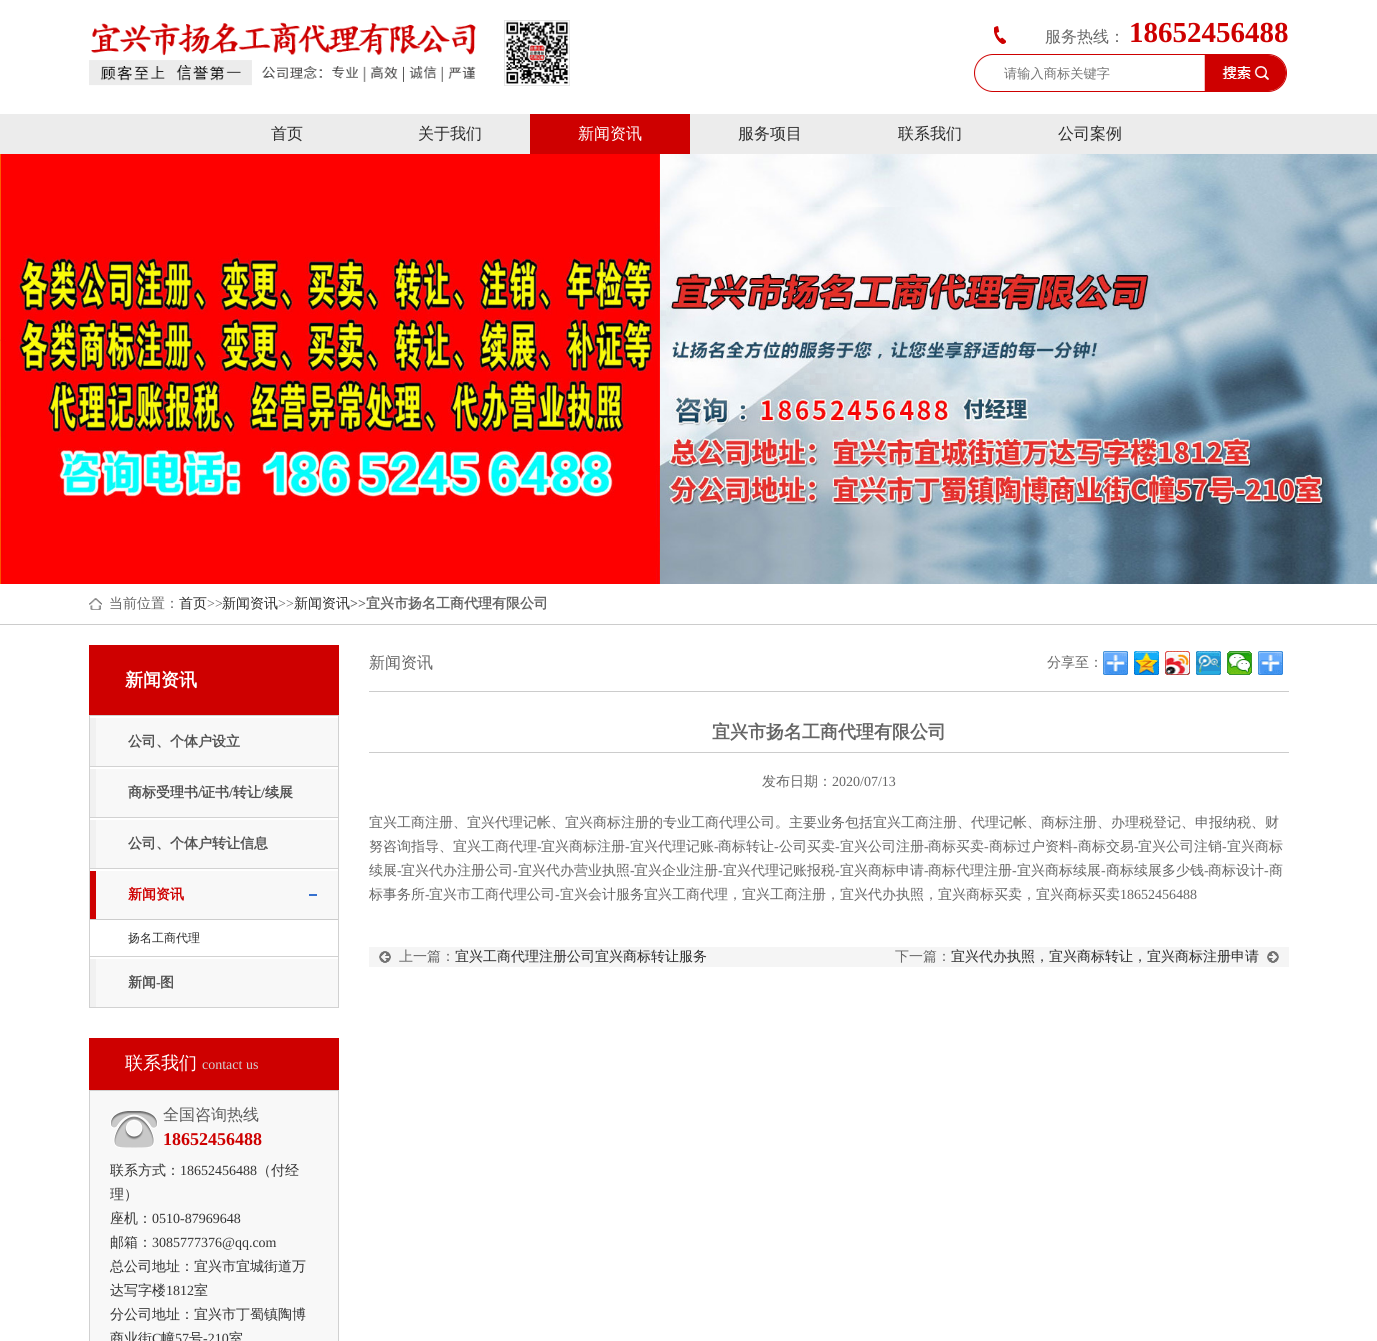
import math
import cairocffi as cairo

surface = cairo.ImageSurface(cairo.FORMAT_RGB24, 1377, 1341)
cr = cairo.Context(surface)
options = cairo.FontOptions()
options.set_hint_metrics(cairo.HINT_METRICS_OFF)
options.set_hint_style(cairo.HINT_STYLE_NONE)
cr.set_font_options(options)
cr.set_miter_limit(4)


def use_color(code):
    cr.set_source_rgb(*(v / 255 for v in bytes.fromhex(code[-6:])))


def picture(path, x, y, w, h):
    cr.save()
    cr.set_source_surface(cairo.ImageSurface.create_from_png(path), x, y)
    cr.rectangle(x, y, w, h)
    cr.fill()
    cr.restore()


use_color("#ffffff")
cr.paint()
picture("img1.png", 89, 20, 481, 66)
picture("img2.png", 994, 26, 12, 18)
cr.select_font_face("WenQuanYi Zen Hei Medium")
cr.set_font_size(16)
use_color("#666666")
cr.move_to(1045, 42)
cr.show_text("服务热线：")
cr.select_font_face("Liberation Serif", cairo.FONT_SLANT_NORMAL, cairo.FONT_WEIGHT_BOLD)
cr.set_font_size(29)
use_color("#ce0000")
cr.move_to(1129, 42)
cr.show_text("18652456488")
picture("img3.png", 974, 54, 313, 38)
cr.select_font_face("WenQuanYi Zen Hei Medium")
cr.set_font_size(13.25)
use_color("#757575")
cr.move_to(1004, 78)
cr.show_text("请输入商标关键字")
use_color("#ececec")
cr.rectangle(0, 114, 1377, 40)
cr.fill()
cr.set_font_size(16)
use_color("#2c2c2c")
cr.move_to(271, 139)
cr.show_text("首页")
cr.move_to(418, 139)
cr.show_text("关于我们")
use_color("#ce0000")
cr.rectangle(530, 114, 160, 40)
cr.fill()
use_color("#ffffff")
cr.move_to(578, 139)
cr.show_text("新闻资讯")
use_color("#2c2c2c")
cr.move_to(738, 139)
cr.show_text("服务项目")
cr.move_to(898, 139)
cr.show_text("联系我们")
cr.move_to(1058, 139)
cr.show_text("公司案例")
picture("img4.png", 0, 154, 1377, 430)
use_color("#cccccc")
cr.rectangle(0, 624, 1377, 1)
cr.fill()
picture("img5.png", 89, 598, 13, 12)
cr.set_font_size(14)
use_color("#666666")
cr.move_to(109, 608)
cr.show_text("当前位置：")
use_color("#2c2c2c")
cr.move_to(179, 608)
cr.show_text("首页")
cr.select_font_face("Liberation Serif")
use_color("#666666")
cr.move_to(207, 608)
cr.show_text(">>")
cr.select_font_face("WenQuanYi Zen Hei Medium")
use_color("#2c2c2c")
cr.move_to(222, 608)
cr.show_text("新闻资讯")
cr.select_font_face("Liberation Serif")
use_color("#666666")
cr.move_to(278, 608)
cr.show_text(">>")
cr.select_font_face("WenQuanYi Zen Hei Medium")
use_color("#2c2c2c")
cr.move_to(294, 608)
cr.show_text("新闻资讯")
cr.select_font_face("Liberation Serif", cairo.FONT_SLANT_NORMAL, cairo.FONT_WEIGHT_BOLD)
use_color("#666666")
cr.move_to(350, 608)
cr.show_text(">>")
cr.select_font_face("WenQuanYi Zen Hei", cairo.FONT_SLANT_NORMAL, cairo.FONT_WEIGHT_BOLD)
cr.move_to(366, 608)
cr.show_text("宜兴市扬名工商代理有限公司")
use_color("#ce0000")
cr.rectangle(89, 645, 250, 70)
cr.fill()
use_color("#d1d1d1")
cr.rectangle(89, 715, 250, 1)
cr.fill()
cr.set_font_size(18)
use_color("#ffffff")
cr.move_to(125, 686)
cr.show_text("新闻资讯")
use_color("#d1d1d1")
cr.rectangle(338, 716, 1, 292)
cr.fill()
cr.rectangle(89, 716, 1, 292)
cr.fill()
use_color("#f8f8f8")
cr.rectangle(96, 718, 242, 48)
cr.fill()
use_color("#d2d2d2")
cr.rectangle(90, 766, 248, 1)
cr.fill()
use_color("#f1f1f1")
cr.rectangle(90, 718, 6, 48)
cr.fill()
cr.set_font_size(14)
use_color("#525252")
cr.move_to(128, 746)
cr.show_text("公司、个体户设立")
use_color("#f8f8f8")
cr.rectangle(96, 769, 242, 48)
cr.fill()
use_color("#d2d2d2")
cr.rectangle(90, 817, 248, 1)
cr.fill()
use_color("#f1f1f1")
cr.rectangle(90, 769, 6, 48)
cr.fill()
use_color("#525252")
cr.move_to(128, 797)
cr.show_text("商标受理书")
cr.select_font_face("Liberation Serif", cairo.FONT_SLANT_NORMAL, cairo.FONT_WEIGHT_BOLD)
cr.move_to(198, 797)
cr.show_text("/")
cr.select_font_face("WenQuanYi Zen Hei", cairo.FONT_SLANT_NORMAL, cairo.FONT_WEIGHT_BOLD)
cr.move_to(201, 797)
cr.show_text("证书")
cr.select_font_face("Liberation Serif", cairo.FONT_SLANT_NORMAL, cairo.FONT_WEIGHT_BOLD)
cr.move_to(229, 797)
cr.show_text("/")
cr.select_font_face("WenQuanYi Zen Hei", cairo.FONT_SLANT_NORMAL, cairo.FONT_WEIGHT_BOLD)
cr.move_to(233, 797)
cr.show_text("转让")
cr.select_font_face("Liberation Serif", cairo.FONT_SLANT_NORMAL, cairo.FONT_WEIGHT_BOLD)
cr.move_to(261, 797)
cr.show_text("/")
cr.select_font_face("WenQuanYi Zen Hei", cairo.FONT_SLANT_NORMAL, cairo.FONT_WEIGHT_BOLD)
cr.move_to(265, 797)
cr.show_text("续展")
use_color("#f8f8f8")
cr.rectangle(96, 820, 242, 48)
cr.fill()
use_color("#d2d2d2")
cr.rectangle(90, 868, 248, 1)
cr.fill()
use_color("#f1f1f1")
cr.rectangle(90, 820, 6, 48)
cr.fill()
use_color("#525252")
cr.move_to(128, 848)
cr.show_text("公司、个体户转让信息")
use_color("#f8f8f8")
cr.rectangle(96, 871, 242, 48)
cr.fill()
use_color("#d2d2d2")
cr.rectangle(90, 956, 248, 1)
cr.fill()
use_color("#ce0000")
cr.rectangle(90, 871, 6, 48)
cr.fill()
cr.move_to(128, 899)
cr.show_text("新闻资讯")
use_color("#3671cf")
cr.rectangle(309, 894, 8, 2)
cr.fill()
use_color("#cccccc")
cr.rectangle(90, 919, 248, 1)
cr.fill()
cr.select_font_face("WenQuanYi Zen Hei Medium")
cr.set_font_size(12)
use_color("#2c2c2c")
cr.move_to(128, 942)
cr.show_text("扬名工商代理")
use_color("#f8f8f8")
cr.rectangle(96, 959, 242, 48)
cr.fill()
use_color("#d2d2d2")
cr.rectangle(90, 1007, 248, 1)
cr.fill()
use_color("#f1f1f1")
cr.rectangle(90, 959, 6, 48)
cr.fill()
cr.select_font_face("WenQuanYi Zen Hei", cairo.FONT_SLANT_NORMAL, cairo.FONT_WEIGHT_BOLD)
cr.set_font_size(14)
use_color("#525252")
cr.move_to(128, 987)
cr.show_text("新闻")
cr.select_font_face("Liberation Serif", cairo.FONT_SLANT_NORMAL, cairo.FONT_WEIGHT_BOLD)
cr.move_to(156, 987)
cr.show_text("-")
cr.select_font_face("WenQuanYi Zen Hei", cairo.FONT_SLANT_NORMAL, cairo.FONT_WEIGHT_BOLD)
cr.move_to(160, 987)
cr.show_text("图")
use_color("#ce0000")
cr.rectangle(89, 1038, 250, 52)
cr.fill()
cr.select_font_face("WenQuanYi Zen Hei Medium")
cr.set_font_size(18)
use_color("#ffffff")
cr.move_to(125, 1069)
cr.show_text("联系我们")
cr.select_font_face("Liberation Serif")
cr.set_font_size(14)
use_color("#d1d1d1")
cr.move_to(202, 1069)
cr.show_text("contact us")
use_color("#f8f8f8")
cr.rectangle(90, 1091, 248, 250)
cr.fill()
picture("img6.png", 110, 1111, 48, 37)
cr.rectangle(89.5, 1090.5, 249, 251)
use_color("#d1d1d1")
cr.set_line_width(1)
cr.stroke()
cr.select_font_face("WenQuanYi Zen Hei Medium")
cr.set_font_size(16)
use_color("#5b5b5b")
cr.move_to(163, 1120)
cr.show_text("全国咨询热线")
cr.select_font_face("Liberation Serif", cairo.FONT_SLANT_NORMAL, cairo.FONT_WEIGHT_BOLD)
cr.set_font_size(18)
use_color("#ce0000")
cr.move_to(163, 1145)
cr.show_text("18652456488")
cr.select_font_face("WenQuanYi Zen Hei Medium")
cr.set_font_size(14)
use_color("#333333")
cr.move_to(110, 1175)
cr.show_text("联系方式：")
cr.select_font_face("Liberation Serif")
cr.move_to(180, 1175)
cr.show_text("18652456488")
cr.select_font_face("WenQuanYi Zen Hei Medium")
cr.move_to(257, 1175)
cr.show_text("（付经")
cr.move_to(110, 1199)
cr.show_text("理）")
cr.move_to(110, 1223)
cr.show_text("座机：")
cr.select_font_face("Liberation Serif")
cr.move_to(152, 1223)
cr.show_text("0510-87969648")
cr.select_font_face("WenQuanYi Zen Hei Medium")
cr.move_to(110, 1247)
cr.show_text("邮箱：")
cr.select_font_face("Liberation Serif")
cr.move_to(152, 1247)
cr.show_text("3085777376@qq.com")
cr.select_font_face("WenQuanYi Zen Hei Medium")
cr.move_to(110, 1271)
cr.show_text("总公司地址：宜兴市宜城街道万")
cr.move_to(110, 1295)
cr.show_text("达写字楼")
cr.select_font_face("Liberation Serif")
cr.move_to(166, 1295)
cr.show_text("1812")
cr.select_font_face("WenQuanYi Zen Hei Medium")
cr.move_to(194, 1295)
cr.show_text("室")
cr.move_to(110, 1319)
cr.show_text("分公司地址：宜兴市丁蜀镇陶博")
cr.move_to(110, 1343)
cr.show_text("商业街")
cr.select_font_face("Liberation Serif")
cr.move_to(152, 1343)
cr.show_text("C")
cr.select_font_face("WenQuanYi Zen Hei Medium")
cr.move_to(161, 1343)
cr.show_text("幢")
cr.select_font_face("Liberation Serif")
cr.move_to(175, 1343)
cr.show_text("57")
cr.select_font_face("WenQuanYi Zen Hei Medium")
cr.move_to(189, 1343)
cr.show_text("号")
cr.select_font_face("Liberation Serif")
cr.move_to(203, 1343)
cr.show_text("-210")
cr.select_font_face("WenQuanYi Zen Hei Medium")
cr.move_to(229, 1343)
cr.show_text("室")
use_color("#cccccc")
cr.rectangle(369, 691, 920, 1)
cr.fill()
cr.set_font_size(16)
use_color("#666666")
cr.move_to(369, 668)
cr.show_text("新闻资讯")
cr.set_font_size(14)
cr.move_to(1047, 667)
cr.show_text("分享至：")
picture("img7.png", 1103, 651, 25, 24)
picture("img8.png", 1134, 651, 25, 24)
picture("img9.png", 1165, 651, 25, 24)
picture("img10.png", 1196, 651, 25, 24)
picture("img11.png", 1227, 651, 25, 24)
picture("img7.png", 1258, 651, 25, 24)
use_color("#cccccc")
cr.rectangle(369, 752, 920, 1)
cr.fill()
cr.select_font_face("WenQuanYi Zen Hei", cairo.FONT_SLANT_NORMAL, cairo.FONT_WEIGHT_BOLD)
cr.set_font_size(18)
use_color("#666666")
cr.move_to(712, 738)
cr.show_text("宜兴市扬名工商代理有限公司")
cr.select_font_face("WenQuanYi Zen Hei Medium")
cr.set_font_size(14)
cr.move_to(762, 786)
cr.show_text("发布日期：")
cr.select_font_face("Liberation Serif")
cr.move_to(832, 786)
cr.show_text("2020/07/13")
cr.select_font_face("WenQuanYi Zen Hei Medium")
cr.move_to(369, 827)
cr.show_text("宜兴工商注册、宜兴代理记帐、宜兴商标注册的专业工商代理公司。主要业务包括宜兴工商注册、代理记帐、商标注册、办理税登记、申报纳税、财")
cr.move_to(369, 851)
cr.show_text("努咨询指导、宜兴工商代理")
cr.select_font_face("Liberation Serif")
cr.move_to(537, 851)
cr.show_text("-")
cr.select_font_face("WenQuanYi Zen Hei Medium")
cr.move_to(541, 851)
cr.show_text("宜兴商标注册")
cr.select_font_face("Liberation Serif")
cr.move_to(625, 851)
cr.show_text("-")
cr.select_font_face("WenQuanYi Zen Hei Medium")
cr.move_to(630, 851)
cr.show_text("宜兴代理记账")
cr.select_font_face("Liberation Serif")
cr.move_to(714, 851)
cr.show_text("-")
cr.select_font_face("WenQuanYi Zen Hei Medium")
cr.move_to(718, 851)
cr.show_text("商标转让")
cr.select_font_face("Liberation Serif")
cr.move_to(774, 851)
cr.show_text("-")
cr.select_font_face("WenQuanYi Zen Hei Medium")
cr.move_to(779, 851)
cr.show_text("公司买卖")
cr.select_font_face("Liberation Serif")
cr.move_to(835, 851)
cr.show_text("-")
cr.select_font_face("WenQuanYi Zen Hei Medium")
cr.move_to(840, 851)
cr.show_text("宜兴公司注册")
cr.select_font_face("Liberation Serif")
cr.move_to(924, 851)
cr.show_text("-")
cr.select_font_face("WenQuanYi Zen Hei Medium")
cr.move_to(928, 851)
cr.show_text("商标买卖")
cr.select_font_face("Liberation Serif")
cr.move_to(984, 851)
cr.show_text("-")
cr.select_font_face("WenQuanYi Zen Hei Medium")
cr.move_to(989, 851)
cr.show_text("商标过户资料")
cr.select_font_face("Liberation Serif")
cr.move_to(1073, 851)
cr.show_text("-")
cr.select_font_face("WenQuanYi Zen Hei Medium")
cr.move_to(1078, 851)
cr.show_text("商标交易")
cr.select_font_face("Liberation Serif")
cr.move_to(1134, 851)
cr.show_text("-")
cr.select_font_face("WenQuanYi Zen Hei Medium")
cr.move_to(1138, 851)
cr.show_text("宜兴公司注销")
cr.select_font_face("Liberation Serif")
cr.move_to(1222, 851)
cr.show_text("-")
cr.select_font_face("WenQuanYi Zen Hei Medium")
cr.move_to(1227, 851)
cr.show_text("宜兴商标")
cr.move_to(369, 875)
cr.show_text("续展")
cr.select_font_face("Liberation Serif")
cr.move_to(397, 875)
cr.show_text("-")
cr.select_font_face("WenQuanYi Zen Hei Medium")
cr.move_to(401, 875)
cr.show_text("宜兴代办注册公司")
cr.select_font_face("Liberation Serif")
cr.move_to(513, 875)
cr.show_text("-")
cr.select_font_face("WenQuanYi Zen Hei Medium")
cr.move_to(518, 875)
cr.show_text("宜兴代办营业执照")
cr.select_font_face("Liberation Serif")
cr.move_to(630, 875)
cr.show_text("-")
cr.select_font_face("WenQuanYi Zen Hei Medium")
cr.move_to(634, 875)
cr.show_text("宜兴企业注册")
cr.select_font_face("Liberation Serif")
cr.move_to(718, 875)
cr.show_text("-")
cr.select_font_face("WenQuanYi Zen Hei Medium")
cr.move_to(723, 875)
cr.show_text("宜兴代理记账报税")
cr.select_font_face("Liberation Serif")
cr.move_to(835, 875)
cr.show_text("-")
cr.select_font_face("WenQuanYi Zen Hei Medium")
cr.move_to(840, 875)
cr.show_text("宜兴商标申请")
cr.select_font_face("Liberation Serif")
cr.move_to(924, 875)
cr.show_text("-")
cr.select_font_face("WenQuanYi Zen Hei Medium")
cr.move_to(928, 875)
cr.show_text("商标代理注册")
cr.select_font_face("Liberation Serif")
cr.move_to(1012, 875)
cr.show_text("-")
cr.select_font_face("WenQuanYi Zen Hei Medium")
cr.move_to(1017, 875)
cr.show_text("宜兴商标续展")
cr.select_font_face("Liberation Serif")
cr.move_to(1101, 875)
cr.show_text("-")
cr.select_font_face("WenQuanYi Zen Hei Medium")
cr.move_to(1106, 875)
cr.show_text("商标续展多少钱")
cr.select_font_face("Liberation Serif")
cr.move_to(1204, 875)
cr.show_text("-")
cr.select_font_face("WenQuanYi Zen Hei Medium")
cr.move_to(1208, 875)
cr.show_text("商标设计")
cr.select_font_face("Liberation Serif")
cr.move_to(1264, 875)
cr.show_text("-")
cr.select_font_face("WenQuanYi Zen Hei Medium")
cr.move_to(1269, 875)
cr.show_text("商")
cr.move_to(369, 899)
cr.show_text("标事务所")
cr.select_font_face("Liberation Serif")
cr.move_to(425, 899)
cr.show_text("-")
cr.select_font_face("WenQuanYi Zen Hei Medium")
cr.move_to(429, 899)
cr.show_text("宜兴市工商代理公司")
cr.select_font_face("Liberation Serif")
cr.move_to(555, 899)
cr.show_text("-")
cr.select_font_face("WenQuanYi Zen Hei Medium")
cr.move_to(560, 899)
cr.show_text("宜兴会计服务宜兴工商代理，宜兴工商注册，宜兴代办执照，宜兴商标买卖，宜兴商标买卖")
cr.select_font_face("Liberation Serif")
cr.move_to(1120, 899)
cr.show_text("18652456488")
use_color("#f5f5f5")
cr.rectangle(369, 947, 920, 20)
cr.fill()
picture("img12.png", 379, 951, 12, 12)
cr.select_font_face("WenQuanYi Zen Hei Medium")
use_color("#666666")
cr.move_to(399, 961)
cr.show_text("上一篇：")
use_color("#2c2c2c")
cr.move_to(455, 961)
cr.show_text("宜兴工商代理注册公司宜兴商标转让服务")
picture("img13.png", 1267, 951, 12, 12)
use_color("#666666")
cr.move_to(895, 961)
cr.show_text("下一篇：")
use_color("#2c2c2c")
cr.move_to(951, 961)
cr.show_text("宜兴代办执照，宜兴商标转让，宜兴商标注册申请")
surface.write_to_png("result.png")
